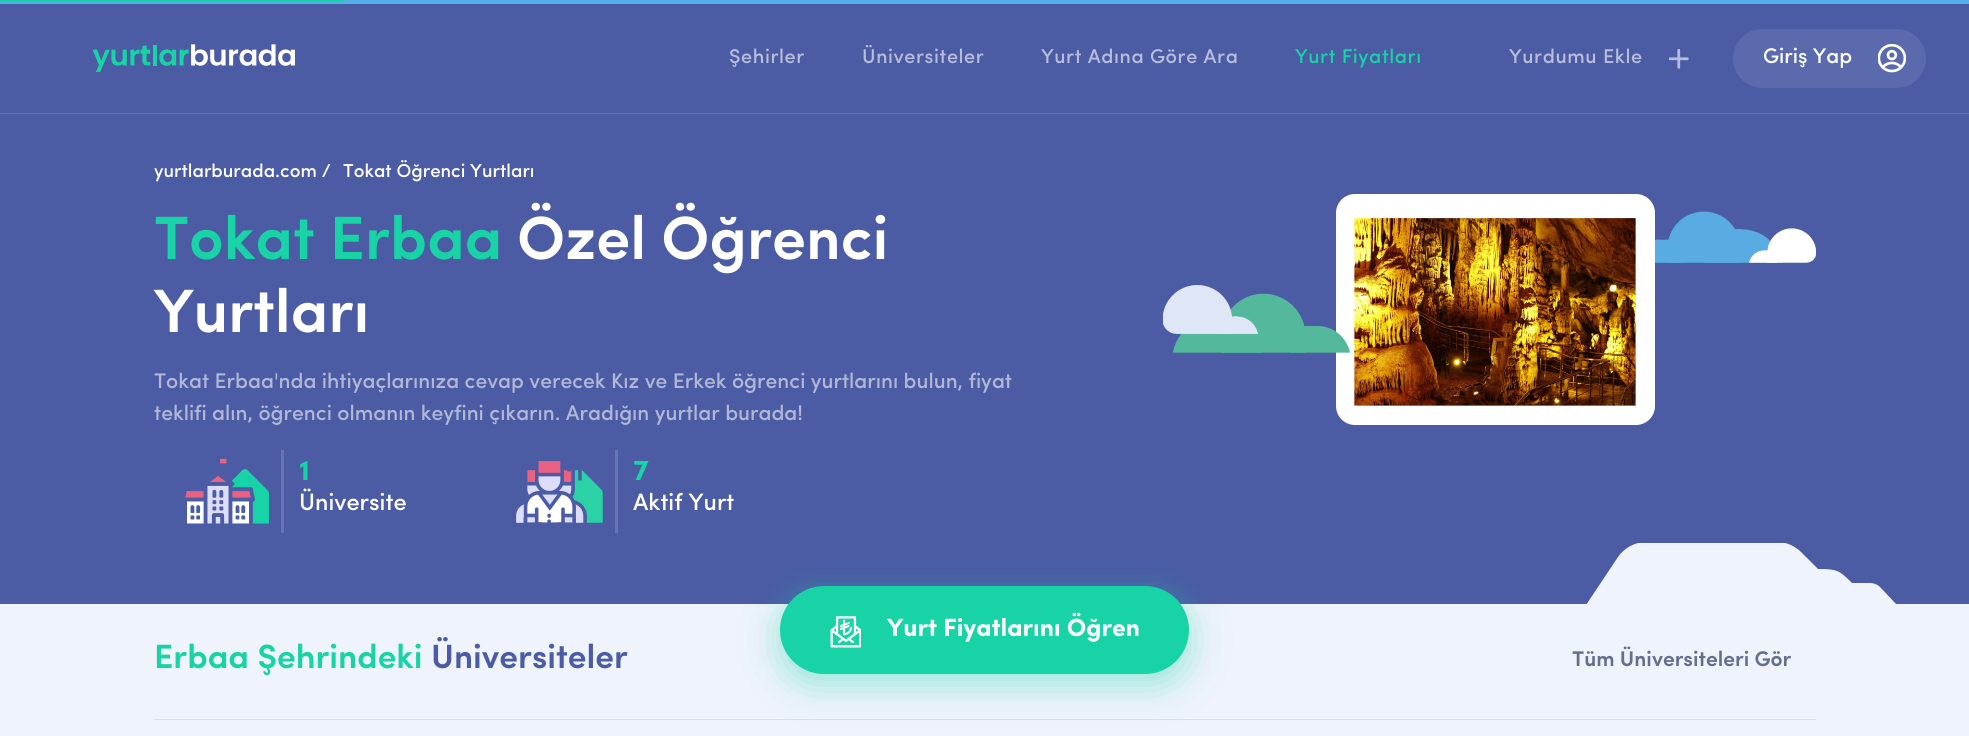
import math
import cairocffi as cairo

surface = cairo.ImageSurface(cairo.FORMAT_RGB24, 1969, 736)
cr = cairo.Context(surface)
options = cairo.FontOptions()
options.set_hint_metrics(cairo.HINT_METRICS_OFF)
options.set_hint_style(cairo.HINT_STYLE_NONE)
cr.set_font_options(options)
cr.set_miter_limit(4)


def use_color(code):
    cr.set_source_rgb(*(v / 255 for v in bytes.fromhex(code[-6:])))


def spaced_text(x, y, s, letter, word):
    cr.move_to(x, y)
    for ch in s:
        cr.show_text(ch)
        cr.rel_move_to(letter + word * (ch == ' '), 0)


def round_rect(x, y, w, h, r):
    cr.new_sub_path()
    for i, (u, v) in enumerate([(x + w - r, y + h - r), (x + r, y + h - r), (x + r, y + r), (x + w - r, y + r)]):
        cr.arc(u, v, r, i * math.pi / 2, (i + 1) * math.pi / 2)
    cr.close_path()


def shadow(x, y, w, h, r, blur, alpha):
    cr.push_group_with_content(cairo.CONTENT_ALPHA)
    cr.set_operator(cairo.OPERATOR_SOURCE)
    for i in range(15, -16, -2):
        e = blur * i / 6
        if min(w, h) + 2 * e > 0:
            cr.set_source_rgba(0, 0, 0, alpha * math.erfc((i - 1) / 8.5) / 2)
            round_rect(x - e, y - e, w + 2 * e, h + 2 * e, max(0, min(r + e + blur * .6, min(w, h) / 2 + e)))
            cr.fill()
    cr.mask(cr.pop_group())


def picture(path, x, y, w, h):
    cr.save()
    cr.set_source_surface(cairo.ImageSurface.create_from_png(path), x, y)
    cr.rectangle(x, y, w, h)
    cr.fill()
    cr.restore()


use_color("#53aee9")
cr.paint()
use_color("#4b5ba4")
cr.rectangle(0, 4, 1969, 600)
cr.fill()
use_color("#6472b1")
cr.rectangle(0, 113, 1969, 1)
cr.fill()
use_color("#17d3a5")
cr.rectangle(0, 0, 344, 2)
cr.fill()
picture("img1.png", 92, 44, 203, 28)
cr.select_font_face("Sofia Medium")
cr.set_font_size(20)
use_color("#b7bddb")
spaced_text(729, 63, "Şehirler", 0.6, 0)
spaced_text(862, 63, "Üniversiteler", 0.6, 0)
spaced_text(1041, 63, "Yurt Adına Göre Ara", 0.6, 0)
use_color("#17d3a5")
spaced_text(1295, 63, "Yurt Fiyatları", 0.6, 0)
use_color("#b7bddb")
spaced_text(1509, 63, "Yurdumu Ekle", 0.6, 0)
picture("img2.png", 1669, 49, 20, 20)
use_color("#5b6aad")
round_rect(1733, 29, 193, 59, 29.5)
cr.fill()
cr.set_font_size(21.25)
use_color("#ffffff")
cr.move_to(1763, 63)
cr.show_text("Giriş Yap")
picture("img3.png", 1878, 44, 28, 29)
cr.set_font_size(18.75)
cr.move_to(154, 177)
cr.show_text("yurtlarburada.com /")
cr.move_to(343, 177)
cr.show_text("Tokat Öğrenci Yurtları")
cr.select_font_face("Sofia SemiBold")
cr.set_font_size(61.25)
use_color("#17d3a5")
cr.move_to(154, 259)
cr.show_text("Tokat Erbaa")
use_color("#ffffff")
cr.move_to(517, 259)
cr.show_text("Özel Öğrenci")
cr.move_to(154, 332)
cr.show_text("Yurtları")
cr.select_font_face("Sofia Medium")
cr.set_font_size(21.25)
use_color("#b0b7d7")
cr.move_to(154, 388)
cr.show_text("Tokat Erbaa'nda ihtiyaçlarınıza cevap verecek Kız ve Erkek öğrenci yurtlarını bulun, fiyat")
cr.move_to(154, 420)
cr.show_text("teklifi alın, öğrenci olmanın keyfini çıkarın. Aradığın yurtlar burada!")
picture("img4.png", 185, 458, 84, 69)
use_color("#6674b2")
cr.rectangle(281, 450, 3, 83)
cr.fill()
cr.select_font_face("Sofia", cairo.FONT_SLANT_NORMAL, cairo.FONT_WEIGHT_BOLD)
cr.set_font_size(29)
use_color("#17d3a5")
cr.move_to(299, 480)
cr.show_text("1")
cr.select_font_face("Sofia Medium")
cr.set_font_size(23.75)
use_color("#ffffff")
cr.move_to(299, 510)
cr.show_text("Üniversite")
picture("img5.png", 516, 461, 87, 62)
use_color("#6674b2")
cr.rectangle(615, 450, 3, 83)
cr.fill()
cr.select_font_face("Sofia", cairo.FONT_SLANT_NORMAL, cairo.FONT_WEIGHT_BOLD)
cr.set_font_size(29)
use_color("#17d3a5")
cr.move_to(633, 480)
cr.show_text("7")
cr.select_font_face("Sofia Medium")
cr.set_font_size(23.75)
use_color("#ffffff")
cr.move_to(633, 510)
cr.show_text("Aktif Yurt")
round_rect(1336, 194, 319, 231, 19)
cr.fill()
picture("img6.png", 1354, 218, 282, 188)
picture("img7.png", 1655, 211, 161, 52)
picture("img8.png", 1163, 285, 187, 68)
use_color("#eff3fb")
cr.rectangle(0, 604, 1969, 132)
cr.fill()
cr.save()
cr.rectangle(1585, 543, 313, 62)
cr.clip()
cr.new_path()
cr.move_to(1586, 605)
cr.line_to(1618, 557)
cr.curve_to(1624, 548, 1635, 542, 1646, 542)
cr.line_to(1778, 542)
cr.curve_to(1786, 542, 1795, 546, 1801, 552)
cr.line_to(1818, 569)
cr.curve_to(1837, 569, 1839, 570, 1852, 583)
cr.line_to(1870, 583)
cr.curve_to(1873, 583, 1877, 584, 1880, 587)
cr.line_to(1897, 605)
cr.close_path()
cr.fill()
cr.restore()
use_color("#d7ddea")
cr.rectangle(154, 719, 1662, 1)
cr.fill()
use_color("#17d3a5")
shadow(780, 596, 409, 88, 44, 18, 0.42)
use_color("#17d3a5")
round_rect(780, 586, 409, 88, 44)
cr.fill()
picture("img9.png", 830, 616, 31, 32)
cr.select_font_face("Sofia", cairo.FONT_SLANT_NORMAL, cairo.FONT_WEIGHT_BOLD)
cr.set_font_size(25)
use_color("#ffffff")
cr.move_to(887, 636)
cr.show_text("Yurt Fiyatlarını Öğren")
cr.select_font_face("Sofia SemiBold")
cr.set_font_size(33.75)
use_color("#17d3a5")
cr.move_to(154, 668)
cr.show_text("Erbaa Şehrindeki")
use_color("#4b5ba4")
cr.move_to(431, 668)
cr.show_text("Üniversiteler")
cr.set_font_size(21.25)
use_color("#656e8d")
cr.move_to(1572, 666)
cr.show_text("Tüm Üniversiteleri Gör")
surface.write_to_png("result.png")
